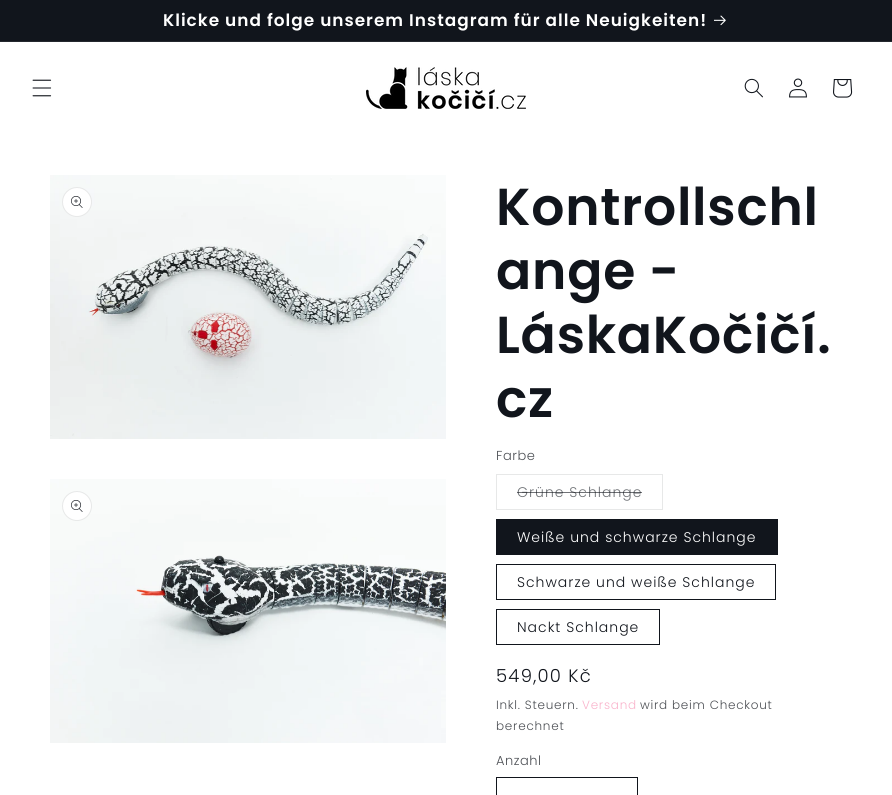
import math
import cairocffi as cairo

surface = cairo.ImageSurface(cairo.FORMAT_RGB24, 892, 795)
cr = cairo.Context(surface)
options = cairo.FontOptions()
options.set_hint_metrics(cairo.HINT_METRICS_OFF)
options.set_hint_style(cairo.HINT_STYLE_NONE)
cr.set_font_options(options)
cr.set_miter_limit(4)


def use_color(code):
    cr.set_source_rgb(*(v / 255 for v in bytes.fromhex(code[-6:])))


def spaced_text(x, y, s, letter, word):
    cr.move_to(x, y)
    for ch in s:
        cr.show_text(ch)
        cr.rel_move_to(letter + word * (ch == ' '), 0)


def picture(path, x, y, w, h):
    cr.save()
    cr.set_source_surface(cairo.ImageSurface.create_from_png(path), x, y)
    cr.rectangle(x, y, w, h)
    cr.fill()
    cr.restore()


use_color("#ffffff")
cr.paint()
use_color("#11151c")
cr.rectangle(0, 0, 892, 41)
cr.fill()
use_color("#24282e")
cr.rectangle(0, 41, 892, 1)
cr.fill()
cr.select_font_face("Poppins SemiBold")
cr.set_font_size(16.9)
use_color("#ffffff")
spaced_text(163, 26, "Klicke und folge unserem Instagram für alle Neuigkeiten!", 1, 0)
picture("img1.png", 714, 15, 12, 11)
picture("img2.png", 32, 79, 20, 18)
picture("img3.png", 366, 67, 160, 42)
picture("img4.png", 744, 78, 19, 20)
picture("img5.png", 789, 78, 18, 20)
picture("img6.png", 833, 79, 20, 19)
picture("img7.png", 50, 175, 396, 264)
cr.arc(77, 202, 15, 0, 2 * math.pi)
cr.fill()
cr.arc(77, 202, 14.5, 0, 2 * math.pi)
cr.set_source_rgba(0.067, 0.082, 0.11, 0.1)
cr.set_line_width(1)
cr.stroke()
picture("img8.png", 71, 196, 12, 12)
picture("img9.png", 50, 479, 396, 264)
use_color("#ffffff")
cr.arc(77, 506, 15, 0, 2 * math.pi)
cr.fill()
cr.arc(77, 506, 14.5, 0, 2 * math.pi)
cr.set_source_rgba(0.067, 0.082, 0.11, 0.1)
cr.stroke()
picture("img8.png", 71, 500, 12, 12)
cr.set_font_size(52)
use_color("#11151c")
spaced_text(496, 225, "Kontrollschl", 0.75, 0)
spaced_text(496, 289, "ange -", 0.75, 0)
spaced_text(496, 353, "LáskaKočičí.", 0.75, 0)
spaced_text(496, 417, "cz", 0.75, 0)
cr.select_font_face("Poppins Light")
cr.set_font_size(13)
use_color("#4d5055")
spaced_text(496, 460, "Farbe", 0.5, 0)
cr.rectangle(496.5, 474.5, 166, 35)
use_color("#e7e8e8")
cr.stroke()
cr.set_font_size(14)
use_color("#707377")
spaced_text(517, 497, "Grüne Schlange", 1, 0)
cr.set_source_rgba(0.067, 0.082, 0.11, 0.6)
cr.rectangle(517, 492, 125, 1)
cr.fill()
use_color("#11151c")
cr.rectangle(496, 519, 282, 36)
cr.fill()
use_color("#ffffff")
spaced_text(517, 542, "Weiße und schwarze Schlange", 1, 0)
cr.rectangle(496.5, 564.5, 279, 35)
use_color("#11151c")
cr.stroke()
spaced_text(517, 587, "Schwarze und weiße Schlange", 1, 0)
cr.rectangle(496.5, 609.5, 163, 35)
cr.stroke()
spaced_text(517, 632, "Nackt Schlange", 1, 0)
cr.set_font_size(18)
spaced_text(496, 682, "549,00 Kč", 1.25, 0)
cr.set_font_size(12)
use_color("#4d5055")
spaced_text(496, 709, "Inkl. Steuern.", 0.75, 0)
use_color("#f9b3cb")
spaced_text(582, 709, "Versand", 0.75, 0)
use_color("#4d5055")
spaced_text(640, 709, "wird beim Checkout", 0.75, 0)
spaced_text(496, 730, "berechnet", 0.75, 0)
cr.set_font_size(13)
spaced_text(496, 765, "Anzahl", 0.5, 0)
cr.rectangle(496.5, 777.5, 141, 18)
use_color("#11151c")
cr.stroke()
surface.write_to_png("result.png")
